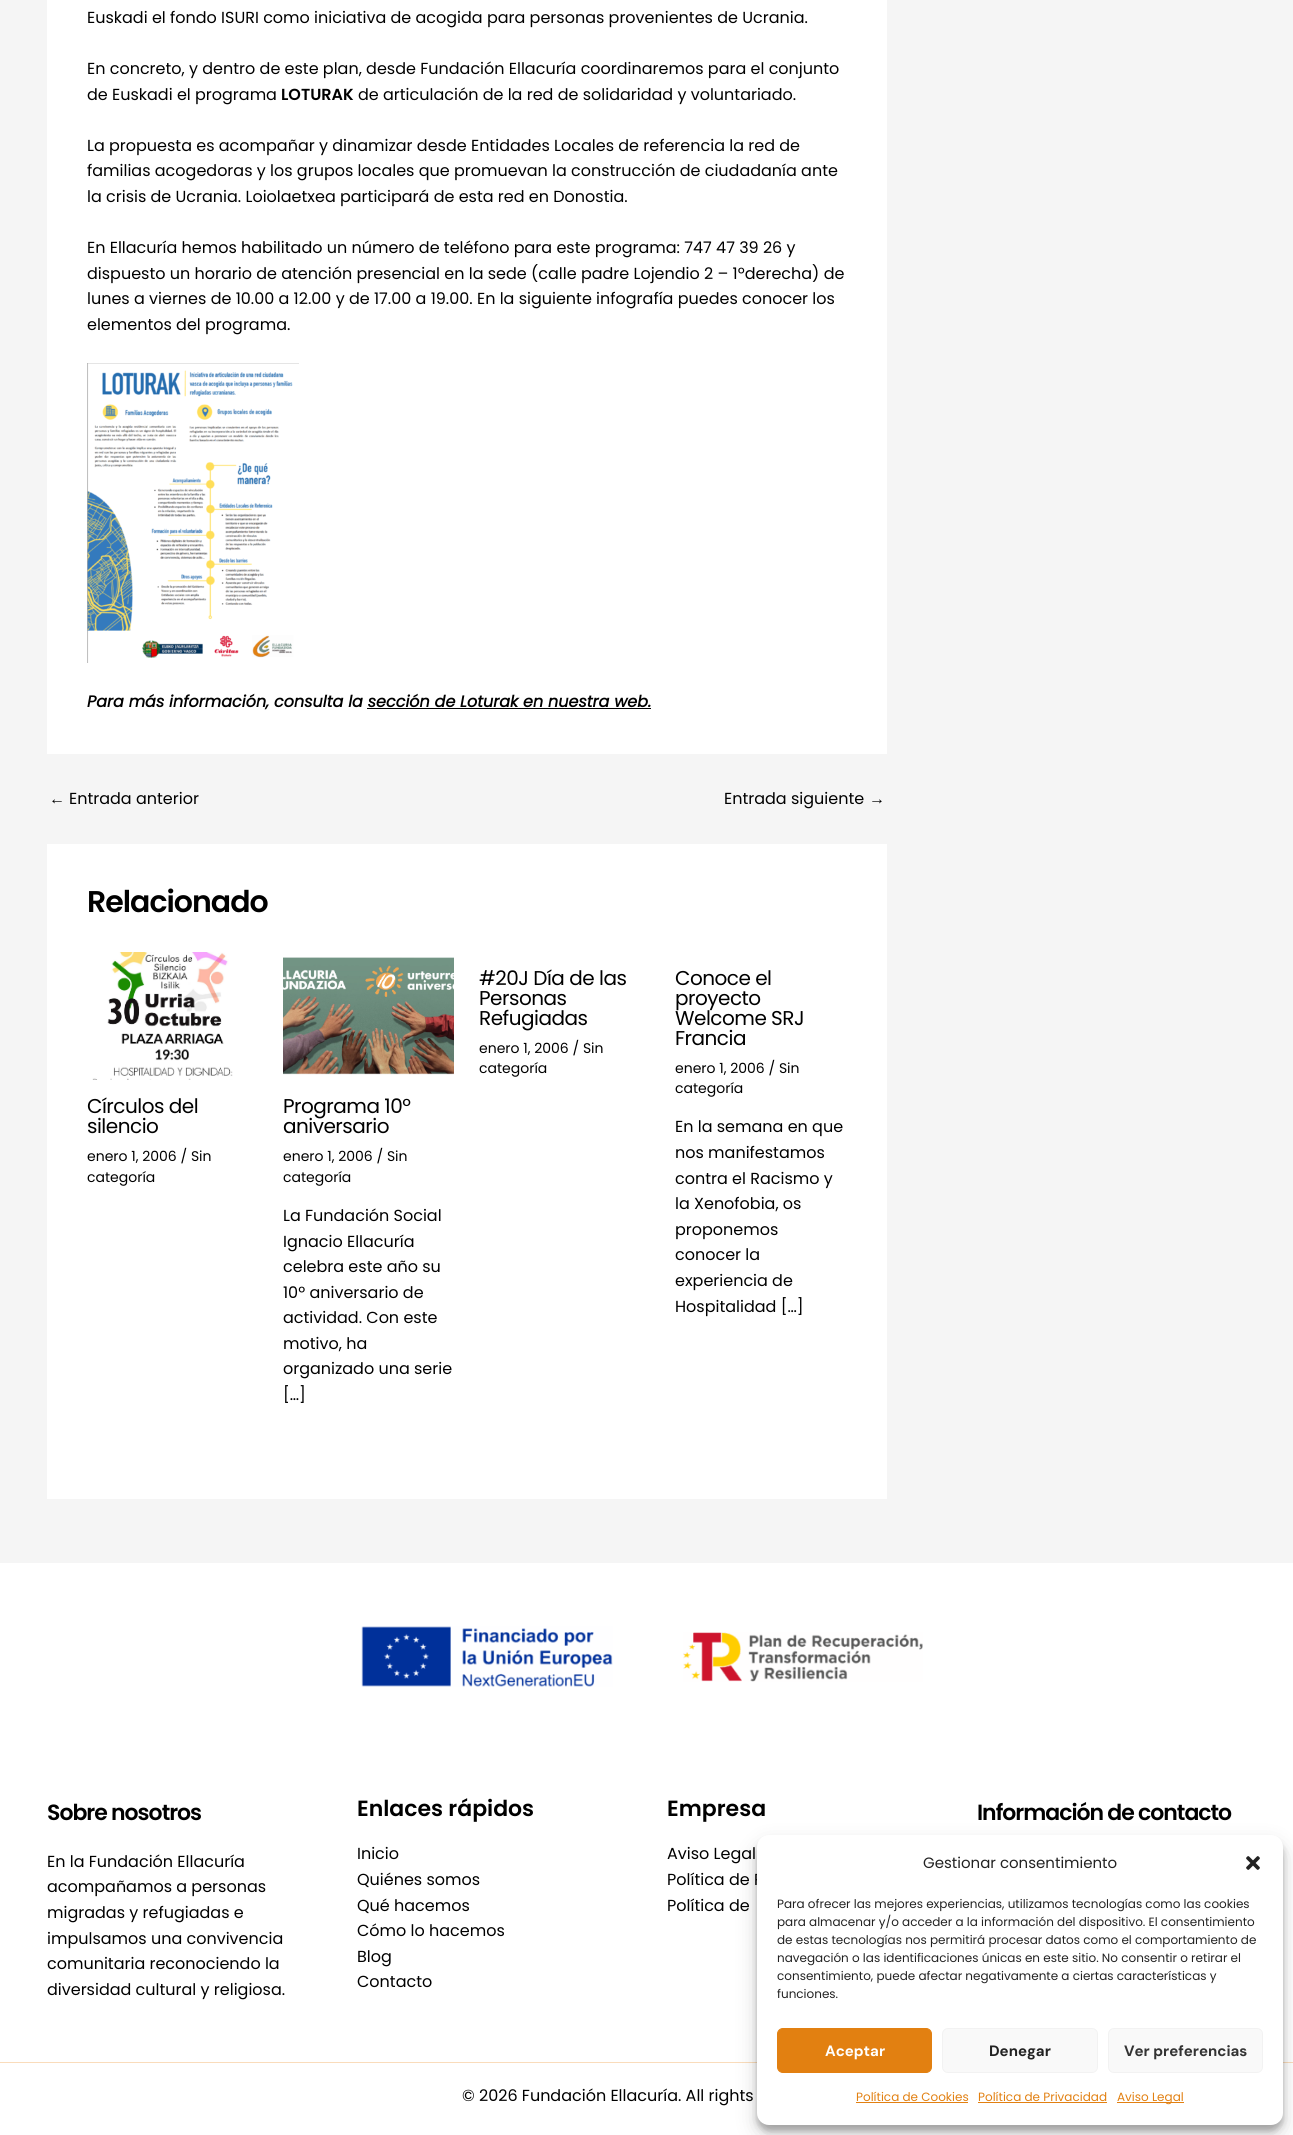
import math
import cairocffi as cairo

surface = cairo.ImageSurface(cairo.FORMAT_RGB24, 1293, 2135)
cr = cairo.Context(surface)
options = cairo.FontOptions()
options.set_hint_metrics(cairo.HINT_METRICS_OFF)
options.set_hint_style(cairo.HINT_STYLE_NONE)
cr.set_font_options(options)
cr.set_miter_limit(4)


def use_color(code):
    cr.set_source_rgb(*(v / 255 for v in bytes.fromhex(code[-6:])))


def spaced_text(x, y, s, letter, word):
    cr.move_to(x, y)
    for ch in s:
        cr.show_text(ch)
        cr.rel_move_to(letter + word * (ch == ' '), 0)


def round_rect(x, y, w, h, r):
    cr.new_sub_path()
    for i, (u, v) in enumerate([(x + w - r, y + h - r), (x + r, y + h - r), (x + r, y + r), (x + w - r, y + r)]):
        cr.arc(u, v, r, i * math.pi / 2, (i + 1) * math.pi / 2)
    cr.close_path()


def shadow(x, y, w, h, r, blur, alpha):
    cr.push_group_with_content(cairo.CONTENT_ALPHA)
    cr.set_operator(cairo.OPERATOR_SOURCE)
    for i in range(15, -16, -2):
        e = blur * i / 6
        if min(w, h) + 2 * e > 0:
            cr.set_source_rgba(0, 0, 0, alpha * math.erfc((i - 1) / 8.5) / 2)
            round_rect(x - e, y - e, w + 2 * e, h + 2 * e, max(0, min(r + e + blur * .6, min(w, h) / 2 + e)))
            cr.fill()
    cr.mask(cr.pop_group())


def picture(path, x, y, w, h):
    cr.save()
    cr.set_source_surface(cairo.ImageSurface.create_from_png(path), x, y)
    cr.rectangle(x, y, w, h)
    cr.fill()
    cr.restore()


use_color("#f5f5f5")
cr.paint()
use_color("#ffffff")
cr.rectangle(47, 0, 840, 754)
cr.fill()
cr.select_font_face("Poppins")
cr.set_font_size(16)
use_color("#000000")
cr.move_to(87, 23)
cr.show_text("Euskadi el fondo ISURI como iniciativa de acogida para personas provenientes de Ucrania.")
cr.move_to(87, 74)
cr.show_text("En concreto, y dentro de este plan, desde Fundación Ellacuría coordinaremos para el conjunto")
cr.move_to(87, 100)
cr.show_text("de Euskadi el programa")
cr.select_font_face("Poppins SemiBold")
cr.move_to(281, 100)
cr.show_text("LOTURAK")
cr.select_font_face("Poppins")
cr.move_to(358, 100)
cr.show_text("de articulación de la red de solidaridad y voluntariado.")
cr.move_to(87, 151)
cr.show_text("La propuesta es acompañar y dinamizar desde Entidades Locales de referencia la red de")
cr.move_to(87, 176)
cr.show_text("familias acogedoras y los grupos locales que promuevan la construcción de ciudadanía ante")
cr.move_to(87, 202)
cr.show_text("la crisis de Ucrania. Loiolaetxea participará de esta red en Donostia.")
cr.move_to(87, 253)
cr.show_text("En Ellacuría hemos habilitado un número de teléfono para este programa: 747 47 39 26 y")
cr.move_to(87, 279)
cr.show_text("dispuesto un horario de atención presencial en la sede (calle padre Lojendio 2 – 1ºderecha) de")
cr.move_to(87, 304)
cr.show_text("lunes a viernes de 10.00 a 12.00 y de 17.00 a 19.00. En la siguiente infografía puedes conocer los")
cr.move_to(87, 330)
cr.show_text("elementos del programa.")
picture("img1.png", 87, 363, 212, 300)
cr.select_font_face("Poppins", cairo.FONT_SLANT_ITALIC, cairo.FONT_WEIGHT_BOLD)
cr.move_to(87, 707)
cr.show_text("Para más información, consulta la sección de Loturak en nuestra web.")
cr.rectangle(367, 708, 284, 1)
cr.fill()
cr.select_font_face("Liberation Sans")
cr.move_to(49, 804)
cr.show_text("←")
cr.select_font_face("Poppins")
cr.move_to(69, 804)
cr.show_text("Entrada anterior")
cr.move_to(724, 804)
cr.show_text("Entrada siguiente")
cr.select_font_face("Liberation Sans")
cr.move_to(869, 804)
cr.show_text("→")
use_color("#ffffff")
cr.rectangle(47, 844, 840, 655)
cr.fill()
cr.select_font_face("Poppins SemiBold")
cr.set_font_size(30)
use_color("#000000")
spaced_text(87, 912, "Relacionado", -1, 0)
picture("img2.png", 92, 952, 141, 128)
cr.select_font_face("Poppins")
cr.set_font_size(20)
spaced_text(87, 1113, "Círculos del", -0.5, 0)
spaced_text(87, 1133, "silencio", -0.5, 0)
cr.set_font_size(14)
cr.move_to(87, 1161)
cr.show_text("enero 1, 2006 / Sin")
cr.move_to(87, 1182)
cr.show_text("categoría")
picture("img3.png", 283, 957, 171, 118)
cr.set_font_size(20)
spaced_text(283, 1113, "Programa 10º", -0.5, 0)
spaced_text(283, 1133, "aniversario", -0.5, 0)
cr.set_font_size(14)
cr.move_to(283, 1161)
cr.show_text("enero 1, 2006 / Sin")
cr.move_to(283, 1182)
cr.show_text("categoría")
cr.set_font_size(16)
cr.move_to(283, 1221)
cr.show_text("La Fundación Social")
cr.move_to(283, 1247)
cr.show_text("Ignacio Ellacuría")
cr.move_to(283, 1272)
cr.show_text("celebra este año su")
cr.move_to(283, 1298)
cr.show_text("10º aniversario de")
cr.move_to(283, 1323)
cr.show_text("actividad. Con este")
cr.move_to(283, 1349)
cr.show_text("motivo, ha")
cr.move_to(283, 1374)
cr.show_text("organizado una serie")
cr.move_to(283, 1400)
cr.show_text("[…]")
cr.set_font_size(20)
spaced_text(479, 985, "#20J Día de las", -0.5, 0)
spaced_text(479, 1005, "Personas", -0.5, 0)
spaced_text(479, 1025, "Refugiadas", -0.5, 0)
cr.set_font_size(14)
cr.move_to(479, 1053)
cr.show_text("enero 1, 2006 / Sin")
cr.move_to(479, 1073)
cr.show_text("categoría")
cr.set_font_size(20)
spaced_text(675, 985, "Conoce el", -0.5, 0)
spaced_text(675, 1005, "proyecto", -0.5, 0)
spaced_text(675, 1025, "Welcome SRJ", -0.5, 0)
spaced_text(675, 1045, "Francia", -0.5, 0)
cr.set_font_size(14)
cr.move_to(675, 1073)
cr.show_text("enero 1, 2006 / Sin")
cr.move_to(675, 1093)
cr.show_text("categoría")
cr.set_font_size(16)
cr.move_to(675, 1132)
cr.show_text("En la semana en que")
cr.move_to(675, 1158)
cr.show_text("nos manifestamos")
cr.move_to(675, 1184)
cr.show_text("contra el Racismo y")
cr.move_to(675, 1209)
cr.show_text("la Xenofobia, os")
cr.move_to(675, 1235)
cr.show_text("proponemos")
cr.move_to(675, 1260)
cr.show_text("conocer la")
cr.move_to(675, 1286)
cr.show_text("experiencia de")
cr.move_to(675, 1312)
cr.show_text("Hospitalidad […]")
use_color("#ffffff")
cr.rectangle(0, 1563, 1293, 499)
cr.fill()
picture("img4.png", 361, 1626, 252, 61)
picture("img5.png", 683, 1632, 240, 50)
cr.select_font_face("Poppins SemiBold")
cr.set_font_size(22)
use_color("#000000")
spaced_text(47, 1820, "Sobre nosotros", -1, 0)
cr.select_font_face("Poppins")
cr.set_font_size(16)
cr.move_to(47, 1867)
cr.show_text("En la Fundación Ellacuría")
cr.move_to(47, 1892)
cr.show_text("acompañamos a personas")
cr.move_to(47, 1918)
cr.show_text("migradas y refugiadas e")
cr.move_to(47, 1944)
cr.show_text("impulsamos una convivencia")
cr.move_to(47, 1969)
cr.show_text("comunitaria reconociendo la")
cr.move_to(47, 1995)
cr.show_text("diversidad cultural y religiosa.")
cr.select_font_face("Poppins SemiBold")
cr.set_font_size(22)
cr.move_to(357, 1816)
cr.show_text("Enlaces rápidos")
cr.select_font_face("Poppins")
cr.set_font_size(16)
cr.move_to(357, 1859)
cr.show_text("Inicio")
cr.move_to(357, 1885)
cr.show_text("Quiénes somos")
cr.move_to(357, 1911)
cr.show_text("Qué hacemos")
cr.move_to(357, 1936)
cr.show_text("Cómo lo hacemos")
cr.move_to(357, 1962)
cr.show_text("Blog")
cr.move_to(357, 1987)
cr.show_text("Contacto")
cr.select_font_face("Poppins SemiBold")
cr.set_font_size(22)
cr.move_to(667, 1816)
cr.show_text("Empresa")
cr.select_font_face("Poppins")
cr.set_font_size(16)
cr.move_to(667, 1859)
cr.show_text("Aviso Legal")
cr.move_to(667, 1885)
cr.show_text("Política de P")
cr.move_to(667, 1911)
cr.show_text("Política de")
cr.select_font_face("Poppins SemiBold")
cr.set_font_size(22)
spaced_text(977, 1820, "Información de contacto", -1, 0)
use_color("#ffffff")
cr.rectangle(0, 2063, 1293, 72)
cr.fill()
use_color("#fadcbb")
cr.rectangle(0, 2062, 1293, 1)
cr.fill()
cr.select_font_face("Poppins")
cr.set_font_size(16)
use_color("#000000")
cr.move_to(462, 2101)
cr.show_text("© 2026 Fundación Ellacuría. All rights")
use_color("#000000")
shadow(757, 1841, 526, 290, 12, 3, 0.23)
shadow(757, 1845, 526, 290, 12, 10, 0.19)
use_color("#ffffff")
round_rect(757, 1835, 526, 290, 12)
cr.fill()
cr.set_font_size(15)
use_color("#222222")
cr.move_to(923, 1868)
cr.show_text("Gestionar consentimiento")
picture("img6.png", 1246, 1856, 14, 14)
cr.set_font_size(12)
cr.move_to(777, 1908)
cr.show_text("Para ofrecer las mejores experiencias, utilizamos tecnologías como las cookies")
cr.move_to(777, 1926)
cr.show_text("para almacenar y/o acceder a la información del dispositivo. El consentimiento")
cr.move_to(777, 1944)
cr.show_text("de estas tecnologías nos permitirá procesar datos como el comportamiento de")
cr.move_to(777, 1962)
cr.show_text("navegación o las identificaciones únicas en este sitio. No consentir o retirar el")
cr.move_to(777, 1980)
cr.show_text("consentimiento, puede afectar negativamente a ciertas características y")
cr.move_to(777, 1998)
cr.show_text("funciones.")
use_color("#e28011")
round_rect(777.5, 2028.5, 154, 44, 5.5)
cr.fill_preserve()
cr.set_line_width(1)
cr.stroke()
cr.select_font_face("DM Sans", cairo.FONT_SLANT_NORMAL, cairo.FONT_WEIGHT_BOLD)
cr.set_font_size(15)
use_color("#ffffff")
cr.move_to(825, 2056)
cr.show_text("Aceptar")
use_color("#f9f9f9")
round_rect(942.5, 2028.5, 155, 44, 5.5)
cr.fill_preserve()
use_color("#f2f2f2")
cr.stroke()
use_color("#222222")
cr.move_to(989, 2056)
cr.show_text("Denegar")
use_color("#f9f9f9")
round_rect(1108.5, 2028.5, 154, 44, 5.5)
cr.fill_preserve()
use_color("#f2f2f2")
cr.stroke()
use_color("#333333")
cr.move_to(1124, 2056)
cr.show_text("Ver preferencias")
cr.select_font_face("Poppins")
cr.set_font_size(12)
use_color("#e28011")
cr.move_to(856, 2101)
cr.show_text("Política de Cookies")
cr.rectangle(856, 2102, 112, 1)
cr.fill()
cr.move_to(978, 2101)
cr.show_text("Política de Privacidad")
cr.rectangle(978, 2102, 129, 1)
cr.fill()
cr.rectangle(1117, 2102, 67, 1)
cr.fill()
cr.move_to(1117, 2101)
cr.show_text("Aviso Legal")
surface.write_to_png("result.png")
